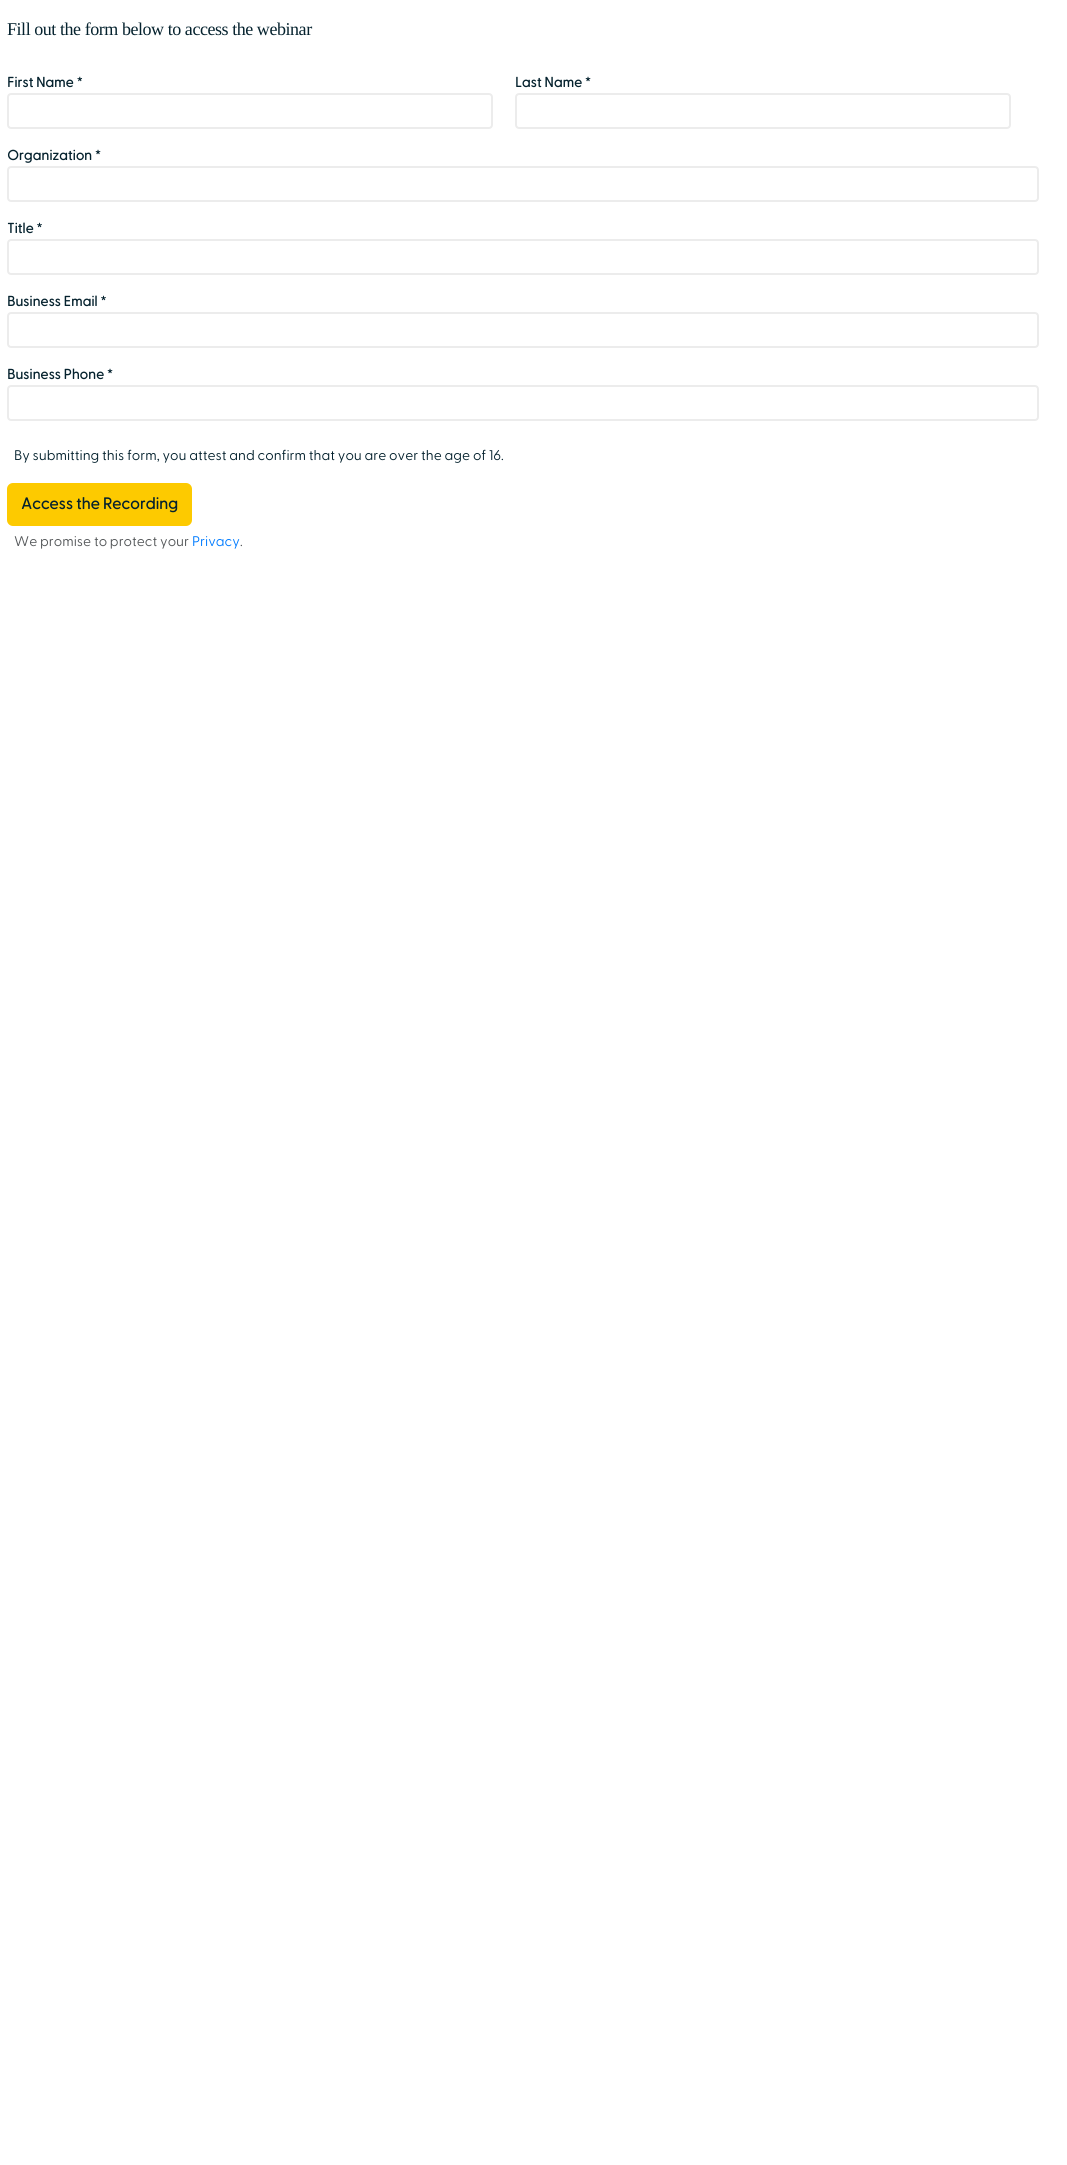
import math
import cairocffi as cairo

surface = cairo.ImageSurface(cairo.FORMAT_RGB24, 1067, 2165)
cr = cairo.Context(surface)
options = cairo.FontOptions()
options.set_hint_metrics(cairo.HINT_METRICS_OFF)
options.set_hint_style(cairo.HINT_STYLE_NONE)
cr.set_font_options(options)
cr.set_miter_limit(4)


def use_color(code):
    cr.set_source_rgb(*(v / 255 for v in bytes.fromhex(code[-6:])))


def spaced_text(x, y, s, letter, word):
    cr.move_to(x, y)
    for ch in s:
        cr.show_text(ch)
        cr.rel_move_to(letter + word * (ch == ' '), 0)


def round_rect(x, y, w, h, r):
    cr.new_sub_path()
    for i, (u, v) in enumerate([(x + w - r, y + h - r), (x + r, y + h - r), (x + r, y + r), (x + w - r, y + r)]):
        cr.arc(u, v, r, i * math.pi / 2, (i + 1) * math.pi / 2)
    cr.close_path()


use_color("#ffffff")
cr.paint()
cr.select_font_face("Liberation Serif")
cr.set_font_size(18)
use_color("#05222e")
spaced_text(7, 35, "Fill out the form below to access the webinar", -0.45, 0)
cr.select_font_face("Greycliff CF", cairo.FONT_SLANT_NORMAL, cairo.FONT_WEIGHT_BOLD)
cr.set_font_size(14)
cr.move_to(7, 87)
cr.show_text("First Name *")
round_rect(8, 94, 484, 34, 3)
use_color("#ececec")
cr.stroke()
use_color("#05222e")
cr.move_to(515, 87)
cr.show_text("Last Name *")
round_rect(516, 94, 494, 34, 3)
use_color("#ececec")
cr.stroke()
use_color("#05222e")
cr.move_to(7, 160)
cr.show_text("Organization *")
round_rect(8, 167, 1030, 34, 3)
use_color("#ececec")
cr.stroke()
use_color("#05222e")
cr.move_to(7, 233)
cr.show_text("Title *")
round_rect(8, 240, 1030, 34, 3)
use_color("#ececec")
cr.stroke()
use_color("#05222e")
cr.move_to(7, 306)
cr.show_text("Business Email *")
round_rect(8, 313, 1030, 34, 3)
use_color("#ececec")
cr.stroke()
use_color("#05222e")
cr.move_to(7, 379)
cr.show_text("Business Phone *")
round_rect(8, 386, 1030, 34, 3)
use_color("#ececec")
cr.stroke()
cr.select_font_face("Greycliff CF")
use_color("#05222e")
cr.move_to(14, 460)
cr.show_text("By submitting this form, you attest and confirm that you are over the age of 16.")
use_color("#fdca00")
round_rect(7, 483, 185, 43, 6)
cr.fill()
cr.select_font_face("Greycliff CF", cairo.FONT_SLANT_NORMAL, cairo.FONT_WEIGHT_BOLD)
cr.set_font_size(16)
use_color("#05222e")
cr.move_to(21, 509)
cr.show_text("Access the Recording")
cr.select_font_face("Greycliff CF")
cr.set_font_size(14)
use_color("#545759")
cr.move_to(14, 546)
cr.show_text("We promise to protect your")
use_color("#007bff")
cr.move_to(192, 546)
cr.show_text("Privacy")
use_color("#545759")
cr.move_to(240, 546)
cr.show_text(".")
surface.write_to_png("result.png")
